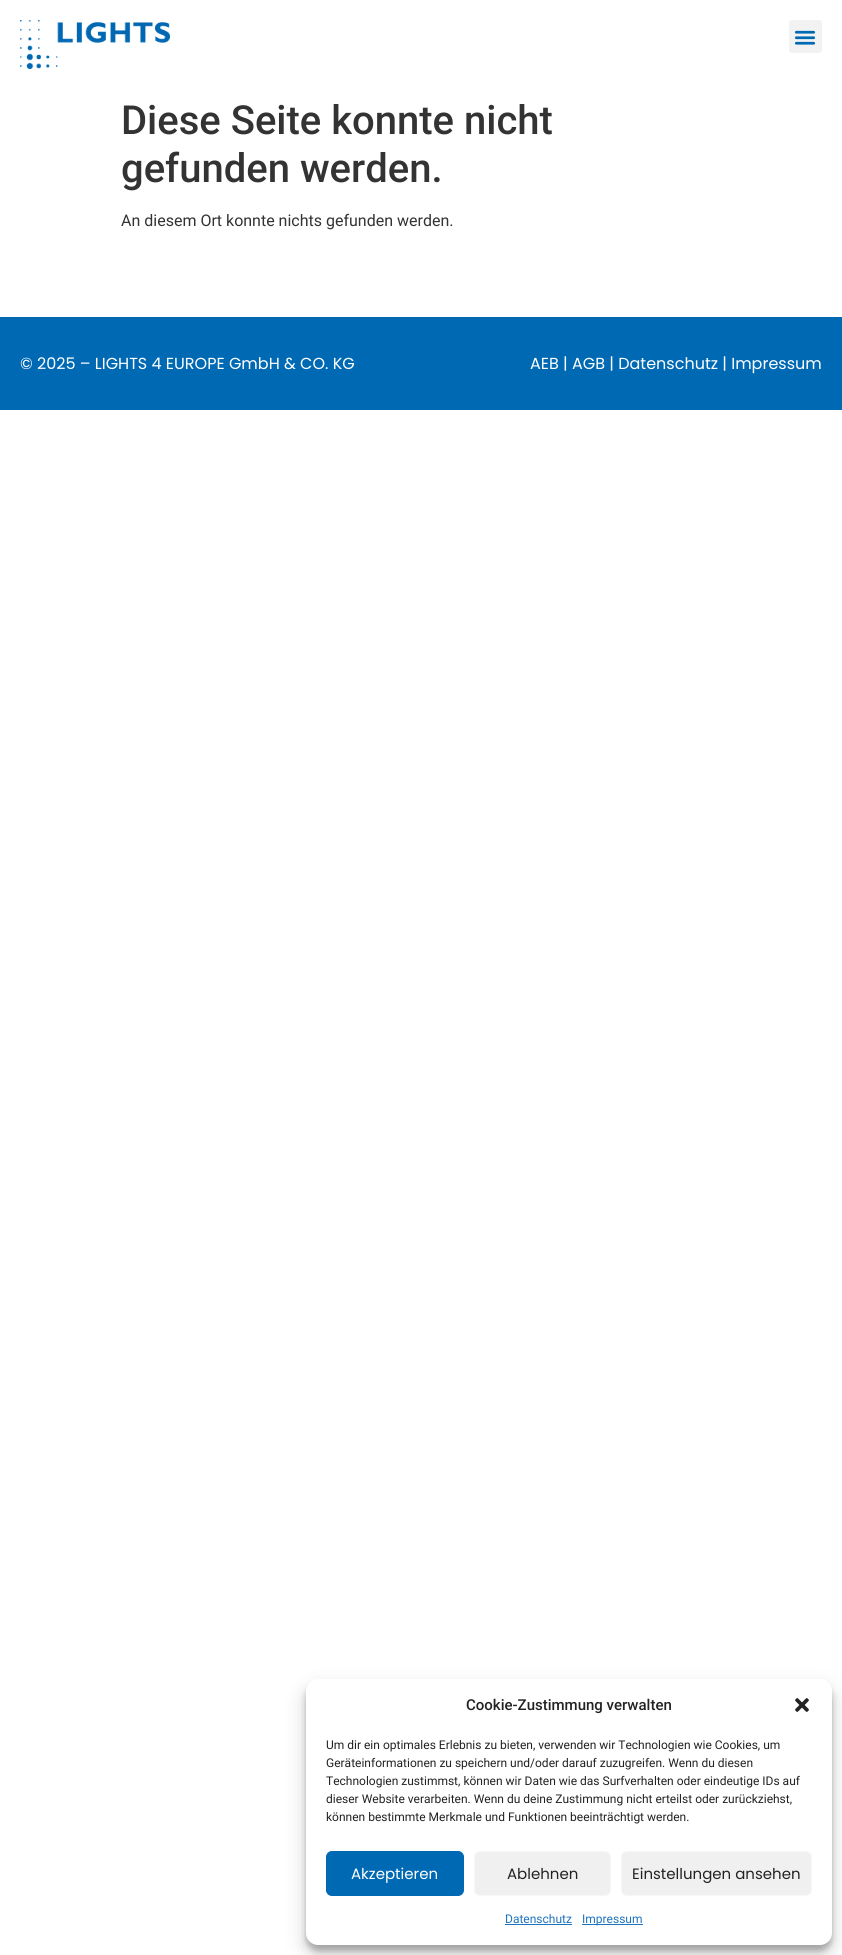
import math
import cairocffi as cairo

surface = cairo.ImageSurface(cairo.FORMAT_RGB24, 842, 1955)
cr = cairo.Context(surface)
options = cairo.FontOptions()
options.set_hint_metrics(cairo.HINT_METRICS_OFF)
options.set_hint_style(cairo.HINT_STYLE_NONE)
cr.set_font_options(options)
cr.set_miter_limit(4)


def use_color(code):
    cr.set_source_rgb(*(v / 255 for v in bytes.fromhex(code[-6:])))


def round_rect(x, y, w, h, r):
    cr.new_sub_path()
    for i, (u, v) in enumerate([(x + w - r, y + h - r), (x + r, y + h - r), (x + r, y + r), (x + w - r, y + r)]):
        cr.arc(u, v, r, i * math.pi / 2, (i + 1) * math.pi / 2)
    cr.close_path()


def shadow(x, y, w, h, r, blur, alpha):
    cr.push_group_with_content(cairo.CONTENT_ALPHA)
    cr.set_operator(cairo.OPERATOR_SOURCE)
    for i in range(15, -16, -2):
        e = blur * i / 6
        if min(w, h) + 2 * e > 0:
            cr.set_source_rgba(0, 0, 0, alpha * math.erfc((i - 1) / 8.5) / 2)
            round_rect(x - e, y - e, w + 2 * e, h + 2 * e, max(0, min(r + e + blur * .6, min(w, h) / 2 + e)))
            cr.fill()
    cr.mask(cr.pop_group())


def picture(path, x, y, w, h):
    cr.save()
    cr.set_source_surface(cairo.ImageSurface.create_from_png(path), x, y)
    cr.rectangle(x, y, w, h)
    cr.fill()
    cr.restore()


use_color("#ffffff")
cr.paint()
picture("img1.png", 20, 20, 150, 49)
use_color("#f2f2f2")
round_rect(789, 20, 33, 33, 3)
cr.fill()
picture("img2.png", 794, 30, 22, 15)
cr.select_font_face("Roboto Medium")
cr.set_font_size(40)
use_color("#333333")
cr.move_to(121, 134)
cr.show_text("Diese Seite konnte nicht")
cr.move_to(121, 182)
cr.show_text("gefunden werden.")
cr.select_font_face("Roboto")
cr.set_font_size(16)
cr.move_to(121, 226)
cr.show_text("An diesem Ort konnte nichts gefunden werden.")
use_color("#0069b4")
cr.rectangle(0, 317, 842, 93)
cr.fill()
cr.select_font_face("Poppins")
use_color("#ffffff")
cr.move_to(20, 369)
cr.show_text("© 2025 – LIGHTS 4 EUROPE GmbH & CO. KG")
cr.move_to(530, 369)
cr.show_text("AEB | AGB | Datenschutz | Impressum")
use_color("#000000")
shadow(306, 1685, 526, 266, 12, 3, 0.23)
shadow(306, 1689, 526, 266, 12, 10, 0.19)
use_color("#ffffff")
round_rect(306, 1679, 526, 266, 12)
cr.fill()
cr.select_font_face("Roboto Medium")
cr.set_font_size(15)
use_color("#222222")
cr.move_to(466, 1710)
cr.show_text("Cookie-Zustimmung verwalten")
picture("img3.png", 795, 1698, 14, 14)
cr.select_font_face("Roboto")
cr.set_font_size(12)
cr.move_to(326, 1749)
cr.show_text("Um dir ein optimales Erlebnis zu bieten, verwenden wir Technologien wie Cookies, um")
cr.move_to(326, 1767)
cr.show_text("Geräteinformationen zu speichern und/oder darauf zuzugreifen. Wenn du diesen")
cr.move_to(326, 1785)
cr.show_text("Technologien zustimmst, können wir Daten wie das Surfverhalten oder eindeutige IDs auf")
cr.move_to(326, 1803)
cr.show_text("dieser Website verarbeiten. Wenn du deine Zustimmung nicht erteilst oder zurückziehst,")
cr.move_to(326, 1821)
cr.show_text("können bestimmte Merkmale und Funktionen beeinträchtigt werden.")
use_color("#0069b4")
round_rect(326.5, 1851.5, 137, 44, 5.5)
cr.fill_preserve()
cr.set_line_width(1)
cr.stroke()
cr.select_font_face("Poppins")
cr.set_font_size(15)
use_color("#ffffff")
cr.move_to(351, 1879)
cr.show_text("Akzeptieren")
use_color("#f0f0f0")
round_rect(474.5, 1851.5, 136, 44, 5.5)
cr.fill_preserve()
use_color("#f7f7f7")
cr.stroke()
use_color("#222222")
cr.move_to(507, 1879)
cr.show_text("Ablehnen")
use_color("#f0f0f0")
round_rect(621.5, 1851.5, 190, 44, 5.5)
cr.fill_preserve()
use_color("#f7f7f7")
cr.stroke()
use_color("#222222")
cr.move_to(632, 1879)
cr.show_text("Einstellungen ansehen")
cr.select_font_face("Roboto")
cr.set_font_size(12)
use_color("#1e73be")
cr.move_to(505, 1923)
cr.show_text("Datenschutz")
cr.rectangle(505, 1924, 67, 1)
cr.fill()
cr.rectangle(582, 1924, 61, 1)
cr.fill()
cr.move_to(582, 1923)
cr.show_text("Impressum")
surface.write_to_png("result.png")
